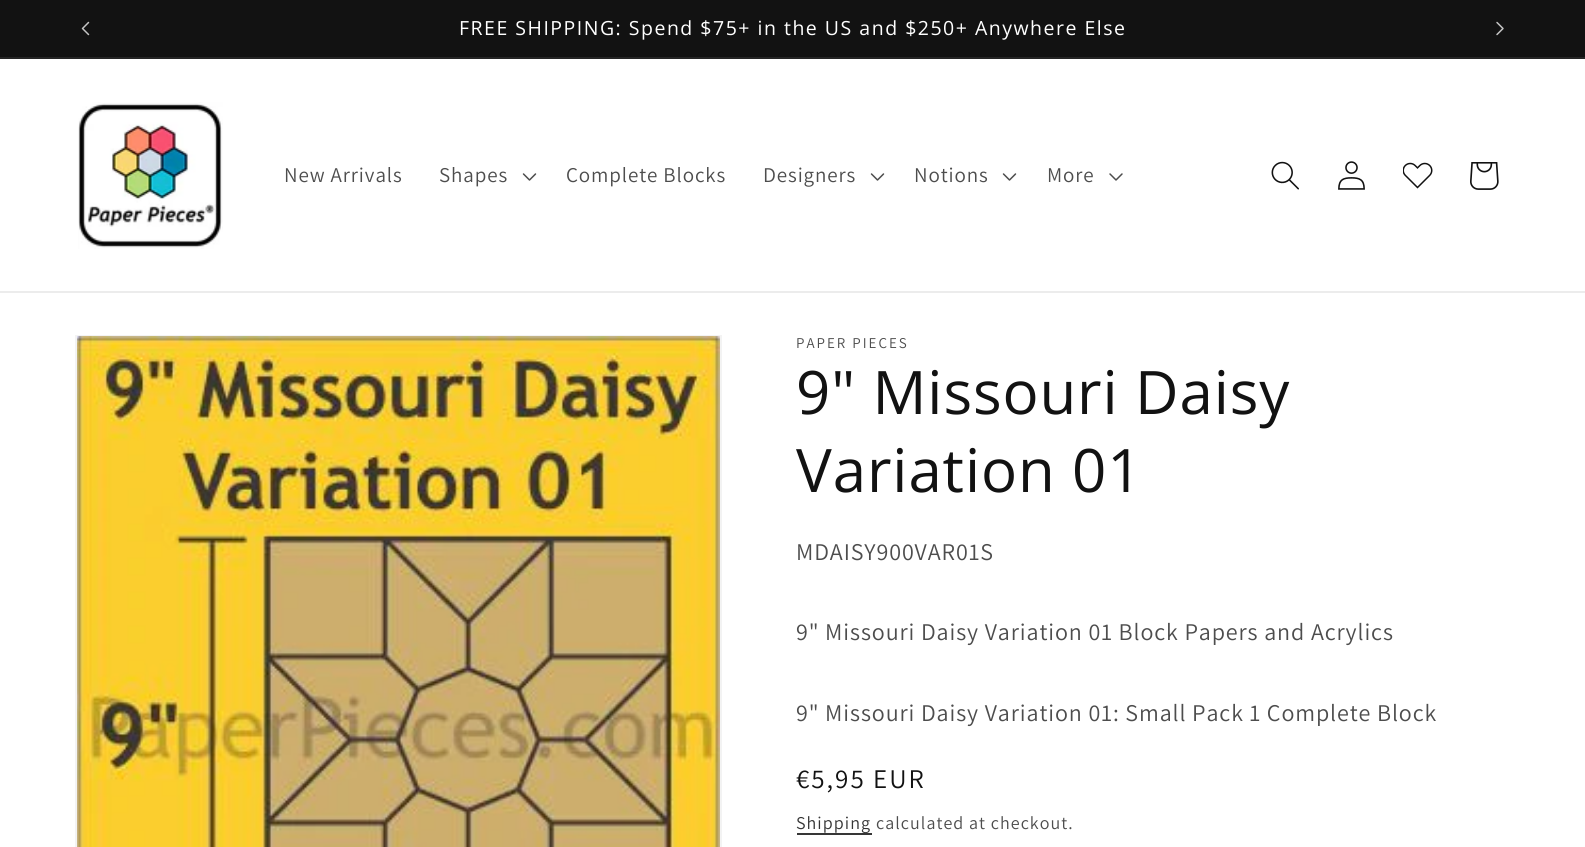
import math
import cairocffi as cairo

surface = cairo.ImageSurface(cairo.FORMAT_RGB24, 1585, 847)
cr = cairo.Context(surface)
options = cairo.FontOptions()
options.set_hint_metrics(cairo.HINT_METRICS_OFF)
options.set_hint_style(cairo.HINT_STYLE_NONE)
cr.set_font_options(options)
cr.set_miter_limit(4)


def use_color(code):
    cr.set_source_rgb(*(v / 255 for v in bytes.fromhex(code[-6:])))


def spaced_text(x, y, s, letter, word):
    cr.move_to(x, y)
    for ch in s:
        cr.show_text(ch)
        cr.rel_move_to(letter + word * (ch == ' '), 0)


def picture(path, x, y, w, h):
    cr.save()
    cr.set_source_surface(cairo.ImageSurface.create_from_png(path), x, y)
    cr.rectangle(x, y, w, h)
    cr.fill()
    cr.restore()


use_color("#ffffff")
cr.paint()
use_color("#121212")
cr.rectangle(0, 0, 1585, 57)
cr.fill()
use_color("#252525")
cr.rectangle(0, 57, 1585, 2)
cr.fill()
picture("img1.png", 81, 21, 9, 15)
cr.select_font_face("Open Sans")
cr.set_font_size(19.5)
use_color("#ffffff")
spaced_text(459, 35, "FREE SHIPPING: Spend $75+ in the US and $250+ Anywhere Else", 1.5, 0)
picture("img2.png", 1496, 21, 8, 15)
use_color("#ececec")
cr.rectangle(0, 291, 1585, 2)
cr.fill()
picture("img3.png", 78, 102, 145, 147)
cr.select_font_face("Assistant")
cr.set_font_size(21)
use_color("#4d4d4d")
spaced_text(284, 182, "New Arrivals", 0.9, 0)
spaced_text(439, 182, "Shapes", 0.9, 0)
picture("img4.png", 522, 173, 15, 8)
spaced_text(566, 182, "Complete Blocks", 0.9, 0)
spaced_text(763, 182, "Designers", 0.9, 0)
picture("img4.png", 870, 173, 15, 8)
spaced_text(914, 182, "Notions", 0.9, 0)
picture("img4.png", 1002, 173, 15, 8)
spaced_text(1047, 182, "More", 0.9, 0)
picture("img5.png", 1109, 173, 14, 8)
picture("img6.png", 1271, 161, 28, 29)
picture("img7.png", 1338, 161, 27, 29)
picture("img8.png", 1403, 162, 30, 27)
picture("img9.png", 1470, 162, 29, 28)
cr.rectangle(76, 336, 645, 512)
use_color("#f3f3f3")
cr.stroke()
picture("img10.png", 77, 336, 643, 511)
cr.set_font_size(15)
use_color("#4d4d4d")
spaced_text(796, 348, "PAPER PIECES", 2, 0)
cr.select_font_face("Open Sans")
cr.set_font_size(60)
use_color("#121212")
spaced_text(796, 414, "9\" Missouri Daisy", 0.9, 0)
spaced_text(796, 492, "Variation 01", 0.9, 0)
cr.select_font_face("Assistant")
cr.set_font_size(24)
use_color("#4d4d4d")
spaced_text(796, 560, "MDAISY900VAR01S", 0.9, 0)
spaced_text(796, 640, "9\" Missouri Daisy Variation 01 Block Papers and Acrylics", 0.9, 0)
spaced_text(796, 721, "9\" Missouri Daisy Variation 01: Small Pack 1 Complete Block", 0.9, 0)
cr.set_font_size(27)
use_color("#121212")
spaced_text(796, 788, "€5,95 EUR", 2, 0)
use_color("#363636")
cr.rectangle(797, 833, 75, 2)
cr.fill()
cr.set_font_size(18)
use_color("#353535")
spaced_text(796, 829, "Shipping", 1.05, 0)
use_color("#4d4d4d")
spaced_text(876, 829, "calculated at checkout.", 1.05, 0)
surface.write_to_png("result.png")
